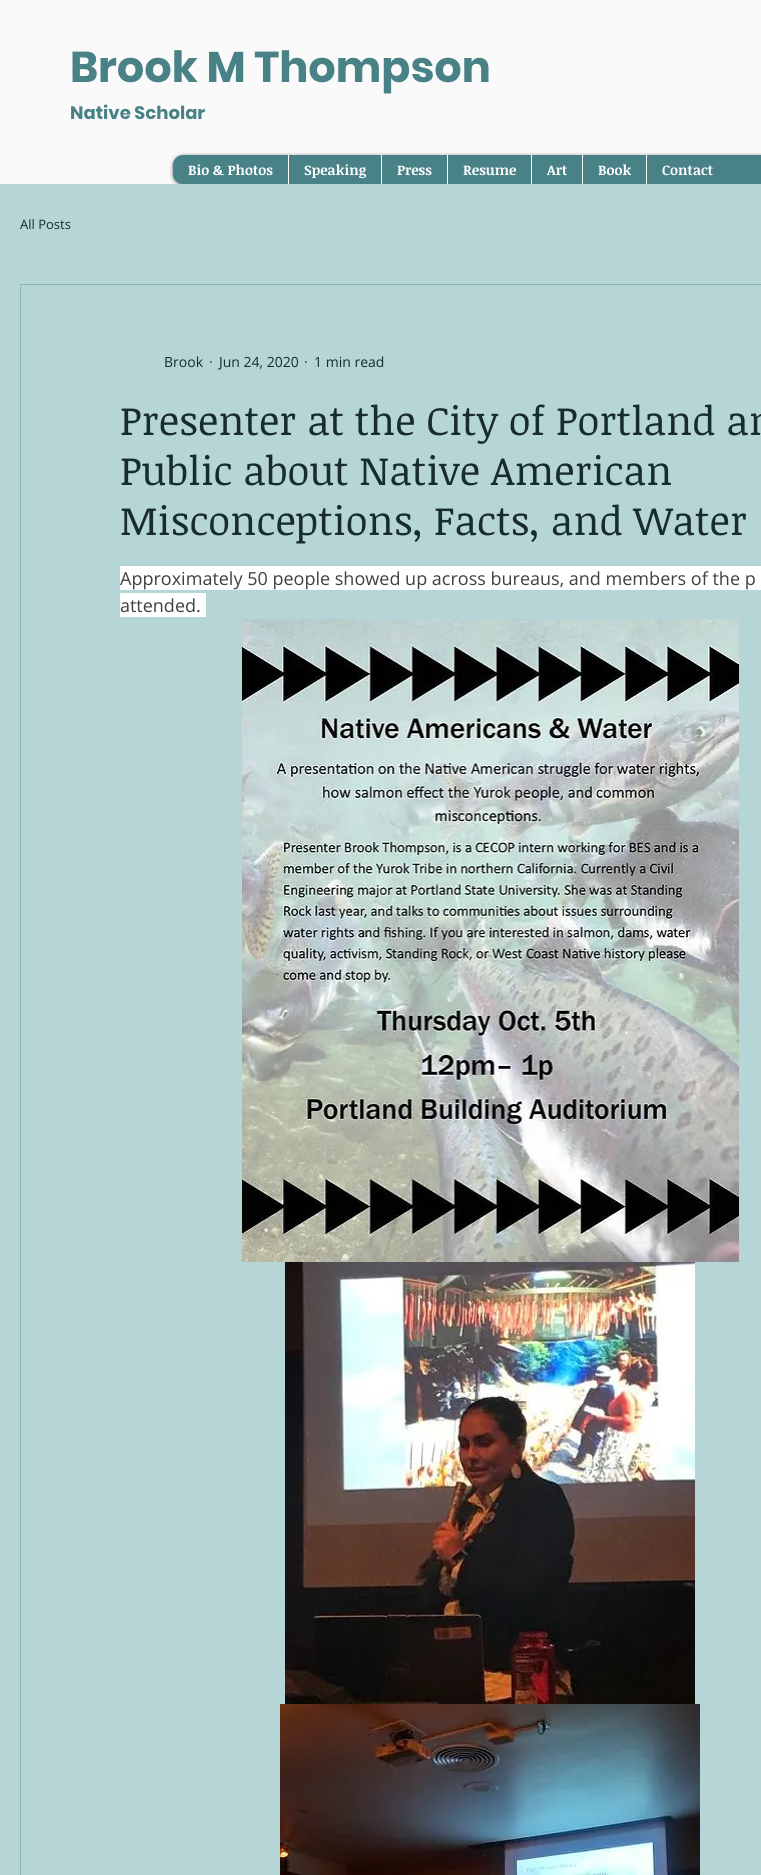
import math
import cairocffi as cairo

surface = cairo.ImageSurface(cairo.FORMAT_RGB24, 761, 1875)
cr = cairo.Context(surface)
options = cairo.FontOptions()
options.set_hint_metrics(cairo.HINT_METRICS_OFF)
options.set_hint_style(cairo.HINT_STYLE_NONE)
cr.set_font_options(options)
cr.set_miter_limit(4)


def use_color(code):
    cr.set_source_rgb(*(v / 255 for v in bytes.fromhex(code[-6:])))


def round_rect(x, y, w, h, r):
    cr.new_sub_path()
    for i, (u, v) in enumerate([(x + w - r, y + h - r), (x + r, y + h - r), (x + r, y + r), (x + w - r, y + r)]):
        cr.arc(u, v, r, i * math.pi / 2, (i + 1) * math.pi / 2)
    cr.close_path()


def shadow(x, y, w, h, r, blur, alpha):
    cr.push_group_with_content(cairo.CONTENT_ALPHA)
    cr.set_operator(cairo.OPERATOR_SOURCE)
    for i in range(15, -16, -2):
        e = blur * i / 6
        if min(w, h) + 2 * e > 0:
            cr.set_source_rgba(0, 0, 0, alpha * math.erfc((i - 1) / 8.5) / 2)
            round_rect(x - e, y - e, w + 2 * e, h + 2 * e, max(0, min(r + e + blur * .6, min(w, h) / 2 + e)))
            cr.fill()
    cr.mask(cr.pop_group())


def picture(path, x, y, w, h):
    cr.save()
    cr.set_source_surface(cairo.ImageSurface.create_from_png(path), x, y)
    cr.rectangle(x, y, w, h)
    cr.fill()
    cr.restore()


use_color("#fafafa")
cr.paint()
cr.select_font_face("Poppins", cairo.FONT_SLANT_NORMAL, cairo.FONT_WEIGHT_BOLD)
cr.set_font_size(43)
use_color("#488286")
cr.move_to(70, 82)
cr.show_text("Brook M Thompson")
cr.set_font_size(18)
cr.move_to(70, 119)
cr.show_text("Native Scholar")
use_color("#000000")
shadow(173, 156, 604, 29, 10, 2, 0.6)
use_color("#488286")
round_rect(173, 155, 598, 29, 10)
cr.fill()
cr.select_font_face("Noticia Text", cairo.FONT_SLANT_NORMAL, cairo.FONT_WEIGHT_BOLD)
cr.set_font_size(14)
use_color("#ffffff")
cr.move_to(188, 175)
cr.show_text("Bio & Photos")
use_color("#fffffe")
cr.rectangle(288, 155, 1, 29)
cr.fill()
use_color("#ffffff")
cr.move_to(304, 175)
cr.show_text("Speaking")
use_color("#fffffe")
cr.rectangle(381, 155, 1, 29)
cr.fill()
use_color("#ffffff")
cr.move_to(397, 175)
cr.show_text("Press")
use_color("#fffffe")
cr.rectangle(447, 155, 1, 29)
cr.fill()
use_color("#ffffff")
cr.move_to(463, 175)
cr.show_text("Resume")
use_color("#fffffe")
cr.rectangle(531, 155, 1, 29)
cr.fill()
use_color("#ffffff")
cr.move_to(547, 175)
cr.show_text("Art")
use_color("#fffffe")
cr.rectangle(582, 155, 1, 29)
cr.fill()
use_color("#ffffff")
cr.move_to(598, 175)
cr.show_text("Book")
use_color("#fffffe")
cr.rectangle(646, 155, 1, 29)
cr.fill()
use_color("#ffffff")
cr.move_to(662, 175)
cr.show_text("Contact")
use_color("#b6d5d7")
cr.rectangle(0, 184, 761, 1691)
cr.fill()
cr.select_font_face("Open Sans")
cr.set_font_size(13)
use_color("#182b2d")
cr.move_to(20, 229)
cr.show_text("All Posts")
cr.rectangle(20.5, 284.5, 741, 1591)
use_color("#92b6b8")
cr.set_line_width(1)
cr.stroke()
cr.set_font_size(14)
use_color("#182b2d")
cr.move_to(164, 367)
cr.show_text("Brook")
cr.move_to(209, 367)
cr.show_text("·")
cr.move_to(219, 367)
cr.show_text("Jun 24, 2020")
cr.move_to(304, 367)
cr.show_text("·")
cr.move_to(314, 367)
cr.show_text("1 min read")
cr.select_font_face("Noticia Text")
cr.set_font_size(40)
cr.move_to(120, 435)
cr.show_text("Presenter at the City of Portland an")
cr.move_to(120, 485)
cr.show_text("Public about Native American")
cr.move_to(120, 535)
cr.show_text("Misconceptions, Facts, and Water")
use_color("#ffffff")
cr.rectangle(120, 566, 641, 24)
cr.fill()
cr.select_font_face("Open Sans")
cr.set_font_size(18)
use_color("#404040")
cr.move_to(120, 585)
cr.show_text("Approximately 50 people showed up across bureaus, and members of the p")
use_color("#ffffff")
cr.rectangle(120, 593, 86, 24)
cr.fill()
use_color("#404040")
cr.move_to(120, 612)
cr.show_text("attended.")
picture("img1.png", 242, 619, 497, 643)
picture("img2.png", 285, 1262, 410, 442)
picture("img3.png", 280, 1704, 420, 171)
surface.write_to_png("result.png")
